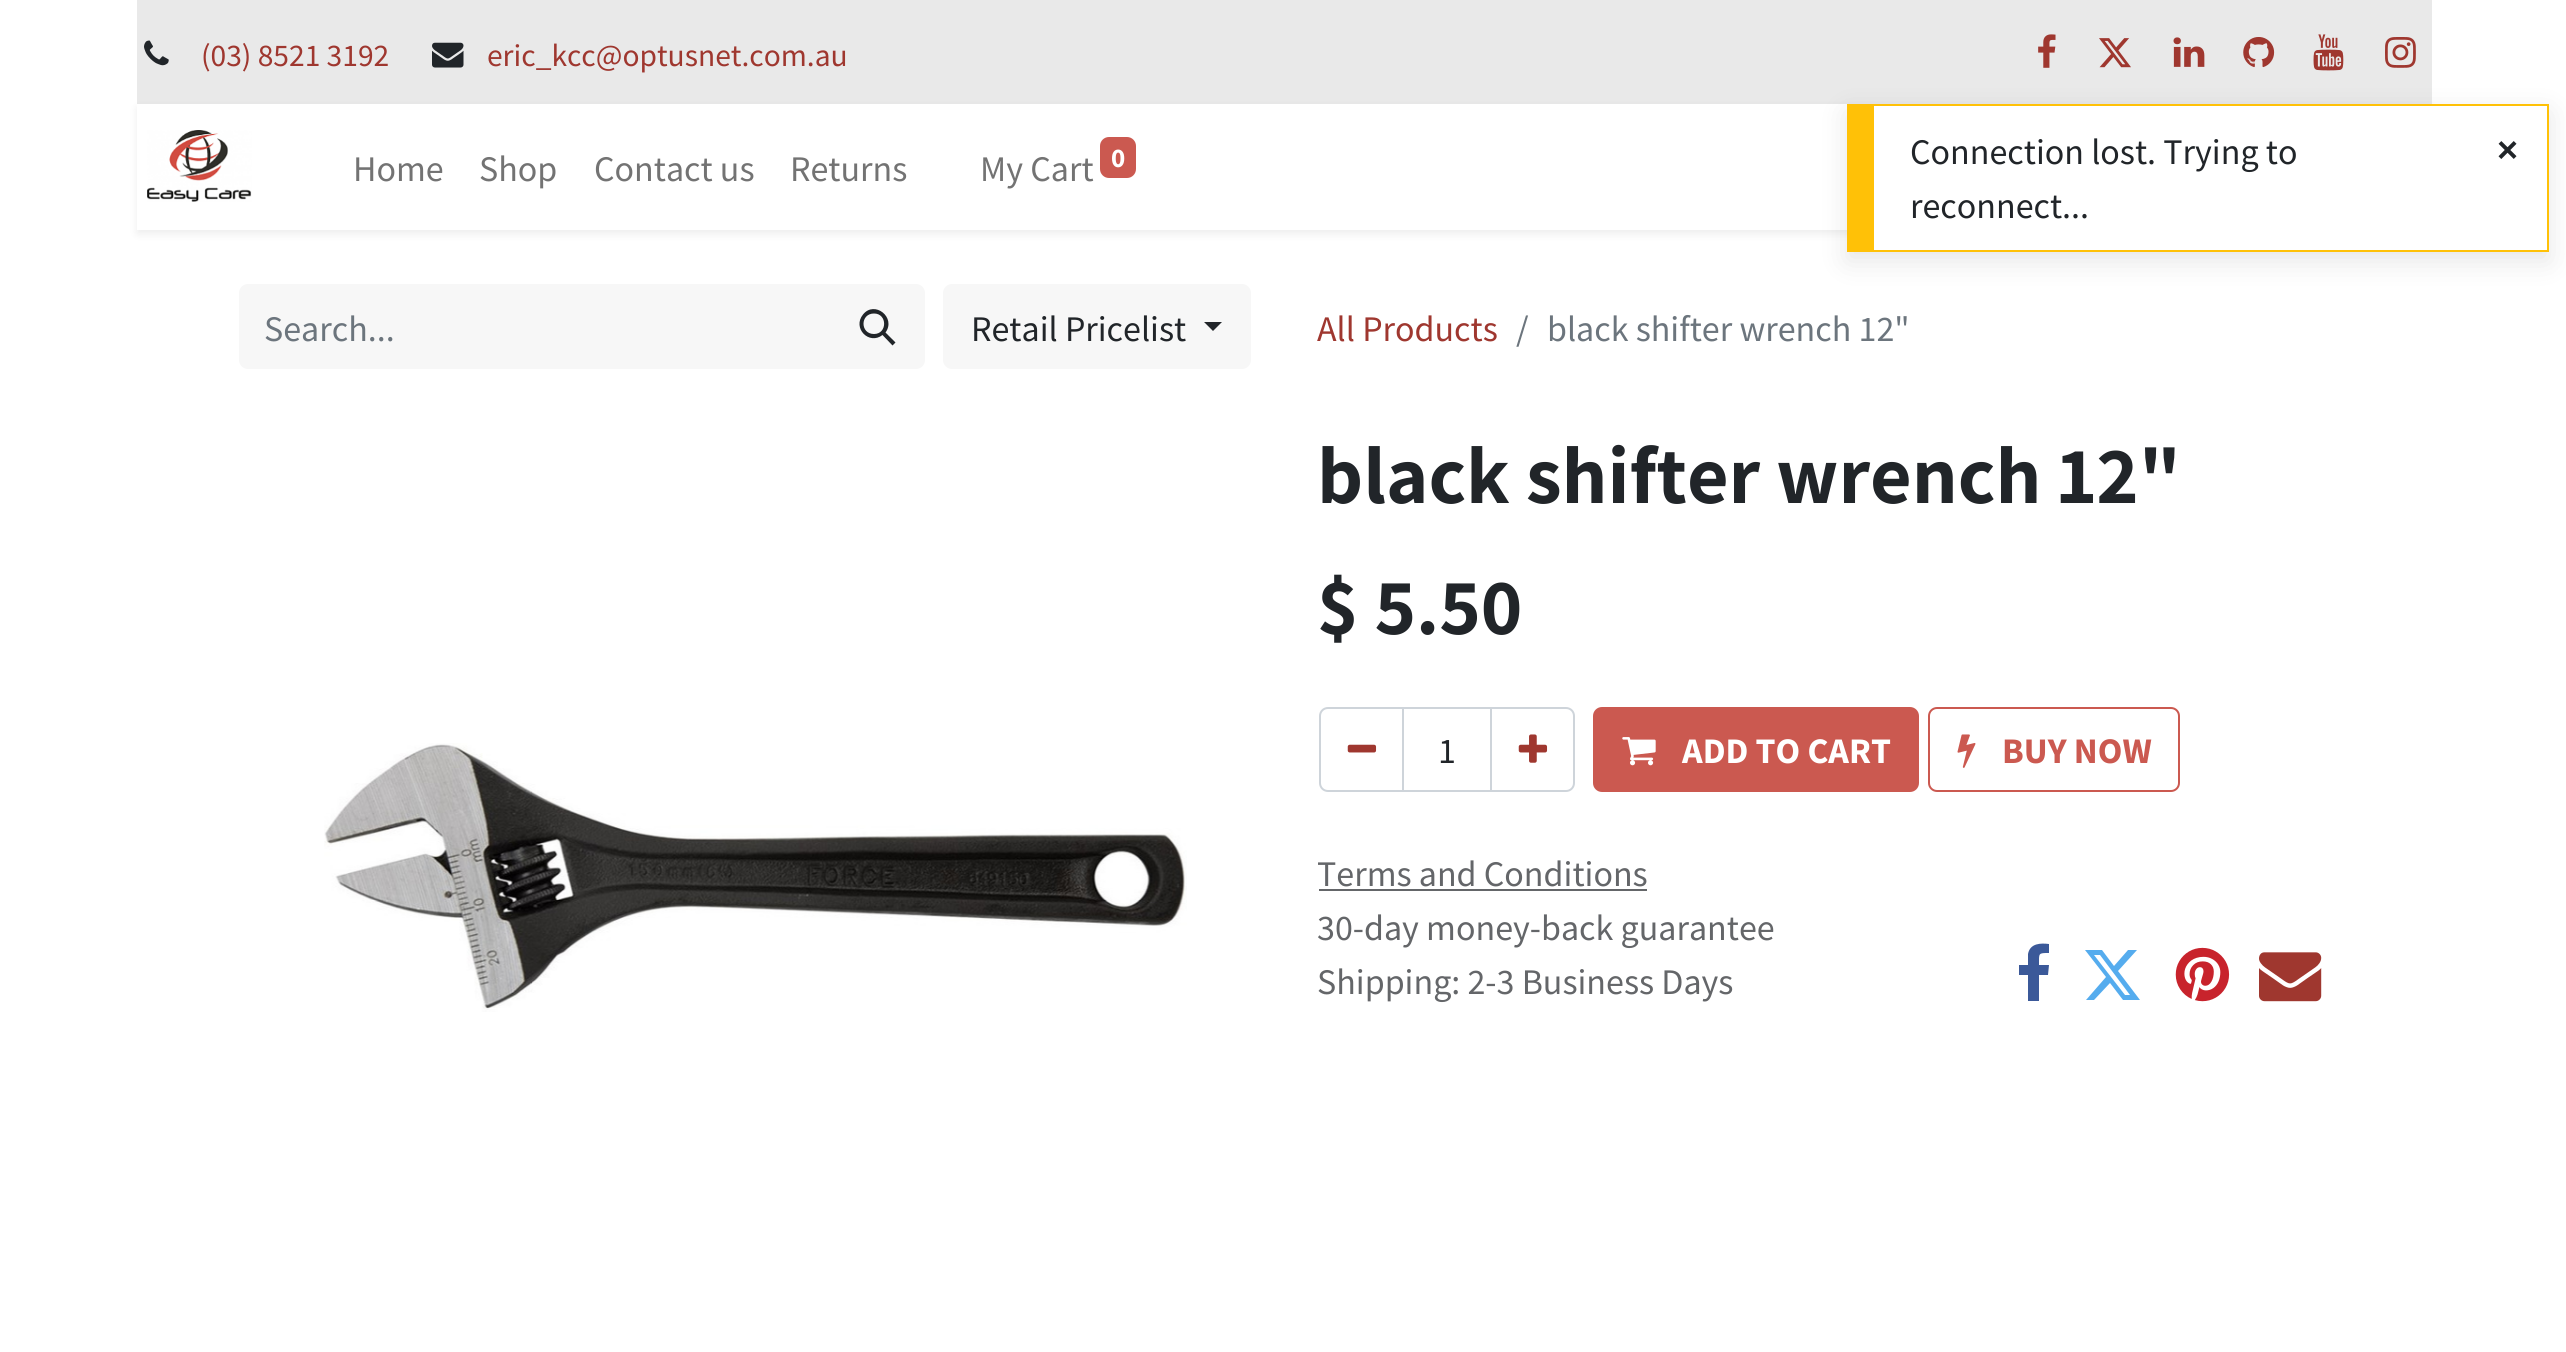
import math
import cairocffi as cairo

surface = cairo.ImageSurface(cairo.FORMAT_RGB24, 2566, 1352)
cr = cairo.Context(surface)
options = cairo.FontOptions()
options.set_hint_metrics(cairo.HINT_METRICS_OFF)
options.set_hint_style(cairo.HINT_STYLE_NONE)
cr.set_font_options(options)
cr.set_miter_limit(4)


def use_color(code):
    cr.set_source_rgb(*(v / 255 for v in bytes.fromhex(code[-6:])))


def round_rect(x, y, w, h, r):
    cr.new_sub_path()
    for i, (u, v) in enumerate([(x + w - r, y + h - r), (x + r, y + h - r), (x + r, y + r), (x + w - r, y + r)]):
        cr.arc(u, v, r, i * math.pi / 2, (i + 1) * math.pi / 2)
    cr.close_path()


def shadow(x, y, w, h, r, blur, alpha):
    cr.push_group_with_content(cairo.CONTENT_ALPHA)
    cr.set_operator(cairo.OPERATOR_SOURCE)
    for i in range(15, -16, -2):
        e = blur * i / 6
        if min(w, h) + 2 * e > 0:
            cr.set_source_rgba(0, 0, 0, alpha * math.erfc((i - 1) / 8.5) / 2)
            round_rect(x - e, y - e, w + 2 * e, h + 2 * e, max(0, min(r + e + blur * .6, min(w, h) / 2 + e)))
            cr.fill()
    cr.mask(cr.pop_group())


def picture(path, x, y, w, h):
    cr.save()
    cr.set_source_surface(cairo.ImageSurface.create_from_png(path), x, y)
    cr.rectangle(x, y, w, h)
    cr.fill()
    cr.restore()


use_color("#ffffff")
cr.paint()
use_color("#e9e9e9")
cr.rectangle(137, 0, 2295, 104)
cr.fill()
picture("img1.png", 144, 40, 25, 26)
cr.select_font_face("Source Sans Pro")
cr.set_font_size(31.5)
use_color("#9f372f")
cr.move_to(201, 66)
cr.show_text("(03) 8521 3192")
picture("img2.png", 432, 42, 32, 26)
cr.move_to(487, 66)
cr.show_text("eric_kcc@optusnet.com.au")
picture("img3.png", 2038, 34, 18, 34)
picture("img4.png", 2099, 38, 32, 30)
picture("img5.png", 2173, 37, 32, 30)
picture("img6.png", 2243, 37, 32, 31)
picture("img7.png", 2313, 34, 31, 37)
picture("img8.png", 2385, 37, 31, 31)
use_color("#000000")
shadow(137, 108, 2295, 126, 0, 4.5, 0.07)
use_color("#ffffff")
cr.rectangle(137, 104, 1710, 126)
cr.fill()
picture("img9.png", 147, 130, 105, 72)
cr.set_font_size(36)
use_color("#737373")
cr.move_to(353, 181)
cr.show_text("Home")
cr.move_to(479, 181)
cr.show_text("Shop")
cr.move_to(594, 181)
cr.show_text("Contact us")
cr.move_to(790, 181)
cr.show_text("Returns")
cr.move_to(980, 181)
cr.show_text("My Cart")
use_color("#cb5950")
round_rect(1100, 137, 36, 41, 9)
cr.fill()
cr.select_font_face("Source Sans Pro", cairo.FONT_SLANT_NORMAL, cairo.FONT_WEIGHT_BOLD)
cr.set_font_size(27)
use_color("#ffffff")
cr.move_to(1111, 167)
cr.show_text("0")
use_color("#f7f7f7")
cr.new_path()
cr.move_to(248, 284)
cr.line_to(833, 284)
cr.line_to(833, 369)
cr.line_to(248, 369)
cr.curve_to(243, 369, 239, 365, 239, 360)
cr.line_to(239, 293)
cr.curve_to(239, 288, 243, 284, 248, 284)
cr.close_path()
cr.fill()
cr.select_font_face("Source Sans Pro")
cr.set_font_size(36)
use_color("#6c757d")
cr.move_to(264, 341)
cr.show_text("Search...")
use_color("#f7f7f7")
cr.new_path()
cr.move_to(830, 284)
cr.line_to(916, 284)
cr.curve_to(921, 284, 925, 288, 925, 293)
cr.line_to(925, 360)
cr.curve_to(925, 365, 921, 369, 916, 369)
cr.line_to(830, 369)
cr.close_path()
cr.fill()
use_color("#212529")
cr.new_path()
cr.move_to(863, 314.5)
cr.curve_to(874.5, 300, 896.5, 317.5, 885.5, 332.5)
cr.line_to(895.5, 342.5)
cr.line_to(892.5, 345.5)
cr.line_to(882.5, 335)
cr.curve_to(869, 345.5, 852, 328, 863, 314.5)
cr.close_path()
cr.move_to(874, 313.5)
cr.curve_to(860, 313.5, 860, 334, 874, 334)
cr.curve_to(887.5, 334, 887.5, 313.5, 874, 313.5)
cr.close_path()
cr.fill()
use_color("#f7f7f7")
round_rect(943, 284, 308, 85, 9)
cr.fill()
use_color("#212529")
cr.move_to(971, 341)
cr.show_text("Retail Pricelist")
cr.new_path()
cr.move_to(1204, 322)
cr.line_to(1222, 322)
cr.line_to(1213, 331)
cr.close_path()
cr.fill()
use_color("#9f372f")
cr.move_to(1317, 341)
cr.show_text("All Products")
use_color("#6c757d")
cr.move_to(1516, 341)
cr.show_text("/")
cr.move_to(1547, 341)
cr.show_text("black shifter wrench 12\"")
picture("img10.png", 324, 743, 863, 269)
cr.select_font_face("Assistant", cairo.FONT_SLANT_NORMAL, cairo.FONT_WEIGHT_BOLD)
cr.set_font_size(81)
use_color("#212529")
cr.move_to(1317, 503)
cr.show_text("black shifter wrench 12\"")
cr.set_font_size(79.5)
cr.move_to(1317, 634)
cr.show_text("$ 5.50")
cr.rectangle(1403, 708, 88, 83)
use_color("#ced4da")
cr.stroke()
cr.new_path()
cr.move_to(1328, 708)
cr.line_to(1403, 708)
cr.line_to(1403, 791)
cr.line_to(1328, 791)
cr.curve_to(1323.5, 791, 1320, 787.5, 1320, 783)
cr.line_to(1320, 716)
cr.curve_to(1320, 711.5, 1323.5, 708, 1328, 708)
cr.close_path()
cr.stroke()
picture("img11.png", 1347, 744, 30, 9)
cr.select_font_face("Source Sans Pro")
cr.set_font_size(36)
use_color("#212529")
cr.move_to(1438, 763)
cr.show_text("1")
cr.new_path()
cr.move_to(1491, 708)
cr.line_to(1566, 708)
cr.curve_to(1570.5, 708, 1574, 711.5, 1574, 716)
cr.line_to(1574, 783)
cr.curve_to(1574, 787.5, 1570.5, 791, 1566, 791)
cr.line_to(1491, 791)
cr.close_path()
use_color("#ced4da")
cr.stroke()
picture("img12.png", 1518, 734, 30, 29)
use_color("#cb5950")
round_rect(1594, 708, 324, 83, 8)
cr.fill_preserve()
cr.stroke()
picture("img13.png", 1622, 737, 34, 29)
cr.select_font_face("Source Sans Pro", cairo.FONT_SLANT_NORMAL, cairo.FONT_WEIGHT_BOLD)
use_color("#ffffff")
cr.move_to(1682, 763)
cr.show_text("ADD TO CART")
round_rect(1929, 708, 250, 83, 8)
use_color("#cb5950")
cr.stroke()
picture("img14.png", 1957, 734, 19, 34)
cr.move_to(2002, 763)
cr.show_text("BUY NOW")
cr.select_font_face("Source Sans Pro")
use_color("#646669")
cr.move_to(1317, 886)
cr.show_text("Terms and Conditions")
cr.rectangle(1319, 889, 328, 2)
cr.fill()
cr.move_to(1317, 940)
cr.show_text("30-day money-back guarantee")
cr.move_to(1317, 994)
cr.show_text("Shipping: 2-3 Business Days")
use_color("#3b5999")
cr.new_path()
cr.move_to(2049, 944)
cr.line_to(2049, 953)
cr.curve_to(2038, 953, 2039, 953, 2039, 965)
cr.line_to(2049, 965)
cr.line_to(2048, 975)
cr.line_to(2039, 975)
cr.line_to(2039, 1001)
cr.line_to(2028, 1001)
cr.line_to(2028, 975)
cr.line_to(2019, 975)
cr.line_to(2019, 965)
cr.line_to(2028, 965)
cr.line_to(2028, 954)
cr.curve_to(2030, 943, 2041, 943, 2049, 944)
cr.close_path()
cr.fill()
use_color("#55acee")
cr.new_path()
cr.move_to(2128, 950)
cr.line_to(2137, 950)
cr.line_to(2118, 971)
cr.line_to(2140, 1000)
cr.line_to(2123, 1000)
cr.line_to(2110, 983)
cr.line_to(2094, 1000)
cr.line_to(2086, 1000)
cr.line_to(2106, 977)
cr.line_to(2085, 950)
cr.line_to(2102, 950)
cr.line_to(2114, 966)
cr.close_path()
cr.move_to(2125, 995)
cr.line_to(2130, 995)
cr.line_to(2100, 955)
cr.line_to(2094, 955)
cr.close_path()
cr.fill()
picture("img15.png", 2175, 947, 55, 55)
picture("img16.png", 2259, 952, 63, 50)
use_color("#000000")
shadow(1847, 113, 702, 148, 0, 13.5, 0.1)
use_color("#ffffff")
cr.rectangle(1874, 106, 673, 144)
cr.fill()
use_color("#ffc107")
cr.rectangle(1874, 104, 675, 2)
cr.fill()
cr.rectangle(2547, 104, 2, 148)
cr.fill()
cr.rectangle(1874, 250, 675, 2)
cr.fill()
cr.rectangle(1847, 104, 27, 148)
cr.fill()
use_color("#212529")
cr.move_to(1910, 164)
cr.show_text("Connection lost. Trying to")
cr.move_to(1910, 218)
cr.show_text("reconnect...")
cr.select_font_face("Liberation Sans", cairo.FONT_SLANT_NORMAL, cairo.FONT_WEIGHT_BOLD)
cr.move_to(2497, 162)
cr.show_text("×")
surface.write_to_png("result.png")
